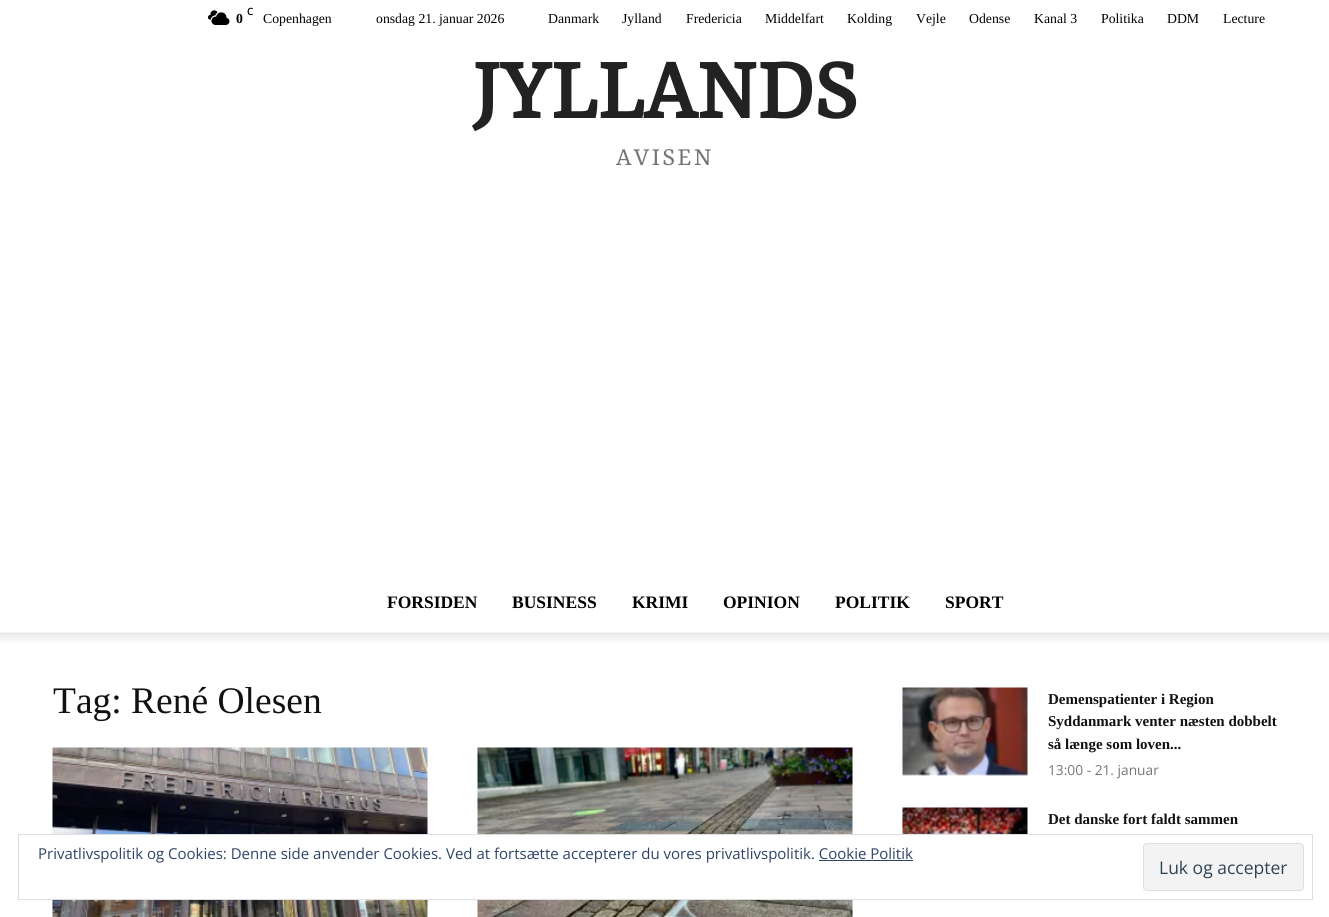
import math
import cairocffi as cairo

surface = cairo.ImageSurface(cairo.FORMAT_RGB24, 1329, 917)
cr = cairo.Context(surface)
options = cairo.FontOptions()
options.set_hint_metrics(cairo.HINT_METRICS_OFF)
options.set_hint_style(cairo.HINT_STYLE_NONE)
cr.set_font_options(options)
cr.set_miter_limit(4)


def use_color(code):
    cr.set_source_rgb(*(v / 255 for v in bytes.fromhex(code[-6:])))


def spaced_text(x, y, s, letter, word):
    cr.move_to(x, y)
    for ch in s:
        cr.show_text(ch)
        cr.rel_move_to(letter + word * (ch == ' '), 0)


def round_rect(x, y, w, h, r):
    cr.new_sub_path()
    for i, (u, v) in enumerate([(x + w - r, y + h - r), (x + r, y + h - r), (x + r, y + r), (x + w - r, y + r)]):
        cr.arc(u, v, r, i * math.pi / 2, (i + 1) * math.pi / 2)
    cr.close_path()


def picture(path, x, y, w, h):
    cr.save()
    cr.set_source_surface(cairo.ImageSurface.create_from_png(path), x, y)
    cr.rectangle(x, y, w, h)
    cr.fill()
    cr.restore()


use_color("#ffffff")
cr.paint()
picture("img1.png", 208, 10, 22, 15)
cr.select_font_face("Open Sans SemiBold")
cr.set_font_size(10)
use_color("#000000")
cr.move_to(247, 15)
cr.show_text("C")
cr.select_font_face("Liberation Serif", cairo.FONT_SLANT_NORMAL, cairo.FONT_WEIGHT_BOLD)
cr.set_font_size(13.75)
cr.move_to(236, 23)
cr.show_text("0")
cr.select_font_face("Liberation Serif")
cr.move_to(263, 23)
cr.show_text("Copenhagen")
cr.move_to(376, 23)
cr.show_text("onsdag 21. januar 2026")
cr.move_to(548, 23)
cr.show_text("Danmark")
cr.move_to(622, 23)
cr.show_text("Jylland")
cr.move_to(686, 23)
cr.show_text("Fredericia")
cr.move_to(765, 23)
cr.show_text("Middelfart")
cr.move_to(847, 23)
cr.show_text("Kolding")
cr.move_to(916, 23)
cr.show_text("Vejle")
cr.move_to(969, 23)
cr.show_text("Odense")
cr.move_to(1034, 23)
cr.show_text("Kanal 3")
cr.move_to(1101, 23)
cr.show_text("Politika")
cr.move_to(1167, 23)
cr.show_text("DDM")
cr.move_to(1223, 23)
cr.show_text("Lecture")
cr.select_font_face("Yrsa", cairo.FONT_SLANT_NORMAL, cairo.FONT_WEIGHT_BOLD)
cr.set_font_size(93.75)
use_color("#222222")
cr.move_to(472, 118)
cr.show_text("JYLLANDS")
cr.select_font_face("Yrsa")
cr.set_font_size(27.5)
use_color("#767676")
spaced_text(616, 165, "AVISEN", 2.25, 0)
cr.select_font_face("Liberation Serif", cairo.FONT_SLANT_NORMAL, cairo.FONT_WEIGHT_BOLD)
cr.set_font_size(17.5)
use_color("#000000")
cr.move_to(387, 608)
cr.show_text("FORSIDEN")
cr.move_to(512, 608)
cr.show_text("BUSINESS")
cr.move_to(632, 608)
cr.show_text("KRIMI")
cr.move_to(723, 608)
cr.show_text("OPINION")
cr.move_to(835, 608)
cr.show_text("POLITIK")
cr.move_to(945, 608)
cr.show_text("SPORT")
picture("img2.png", 0, 632, 1329, 11)
cr.select_font_face("Liberation Serif")
cr.set_font_size(37.5)
use_color("#111111")
cr.move_to(53, 713)
cr.show_text("Tag: René Olesen")
picture("img3.png", 52, 747, 376, 170)
picture("img4.png", 477, 747, 376, 170)
picture("img5.png", 902, 687, 126, 89)
cr.select_font_face("Liberation Serif", cairo.FONT_SLANT_NORMAL, cairo.FONT_WEIGHT_BOLD)
cr.set_font_size(15)
cr.move_to(1048, 704)
cr.show_text("Demenspatienter i Region")
cr.move_to(1048, 726)
cr.show_text("Syddanmark venter næsten dobbelt")
cr.move_to(1048, 749)
cr.show_text("så længe som loven...")
cr.select_font_face("Open Sans")
cr.set_font_size(13.75)
use_color("#767676")
cr.move_to(1048, 775)
cr.show_text("13:00 - 21. januar")
picture("img6.png", 902, 807, 126, 27)
cr.select_font_face("Liberation Serif", cairo.FONT_SLANT_NORMAL, cairo.FONT_WEIGHT_BOLD)
cr.set_font_size(15)
use_color("#111111")
cr.move_to(1048, 824)
cr.show_text("Det danske fort faldt sammen")
use_color("#ffffff")
cr.rectangle(52, 835, 801, 64)
cr.fill()
cr.rectangle(18.5, 834.5, 1294, 65)
use_color("#dedede")
cr.set_line_width(1)
cr.stroke()
cr.select_font_face("Open Sans")
use_color("#2e4467")
cr.move_to(38, 859)
cr.show_text("Privatlivspolitik og Cookies: Denne side anvender Cookies. Ved at fortsætte accepterer du vores privatlivspolitik. Cookie Politik")
cr.rectangle(819, 860, 94, 1)
cr.fill()
use_color("#f3f3f3")
round_rect(1143.5, 843.5, 160, 47, 3.5)
cr.fill_preserve()
use_color("#dedede")
cr.stroke()
cr.set_font_size(17.5)
use_color("#2e4453")
cr.move_to(1159, 874)
cr.show_text("Luk og accepter")
surface.write_to_png("result.png")
